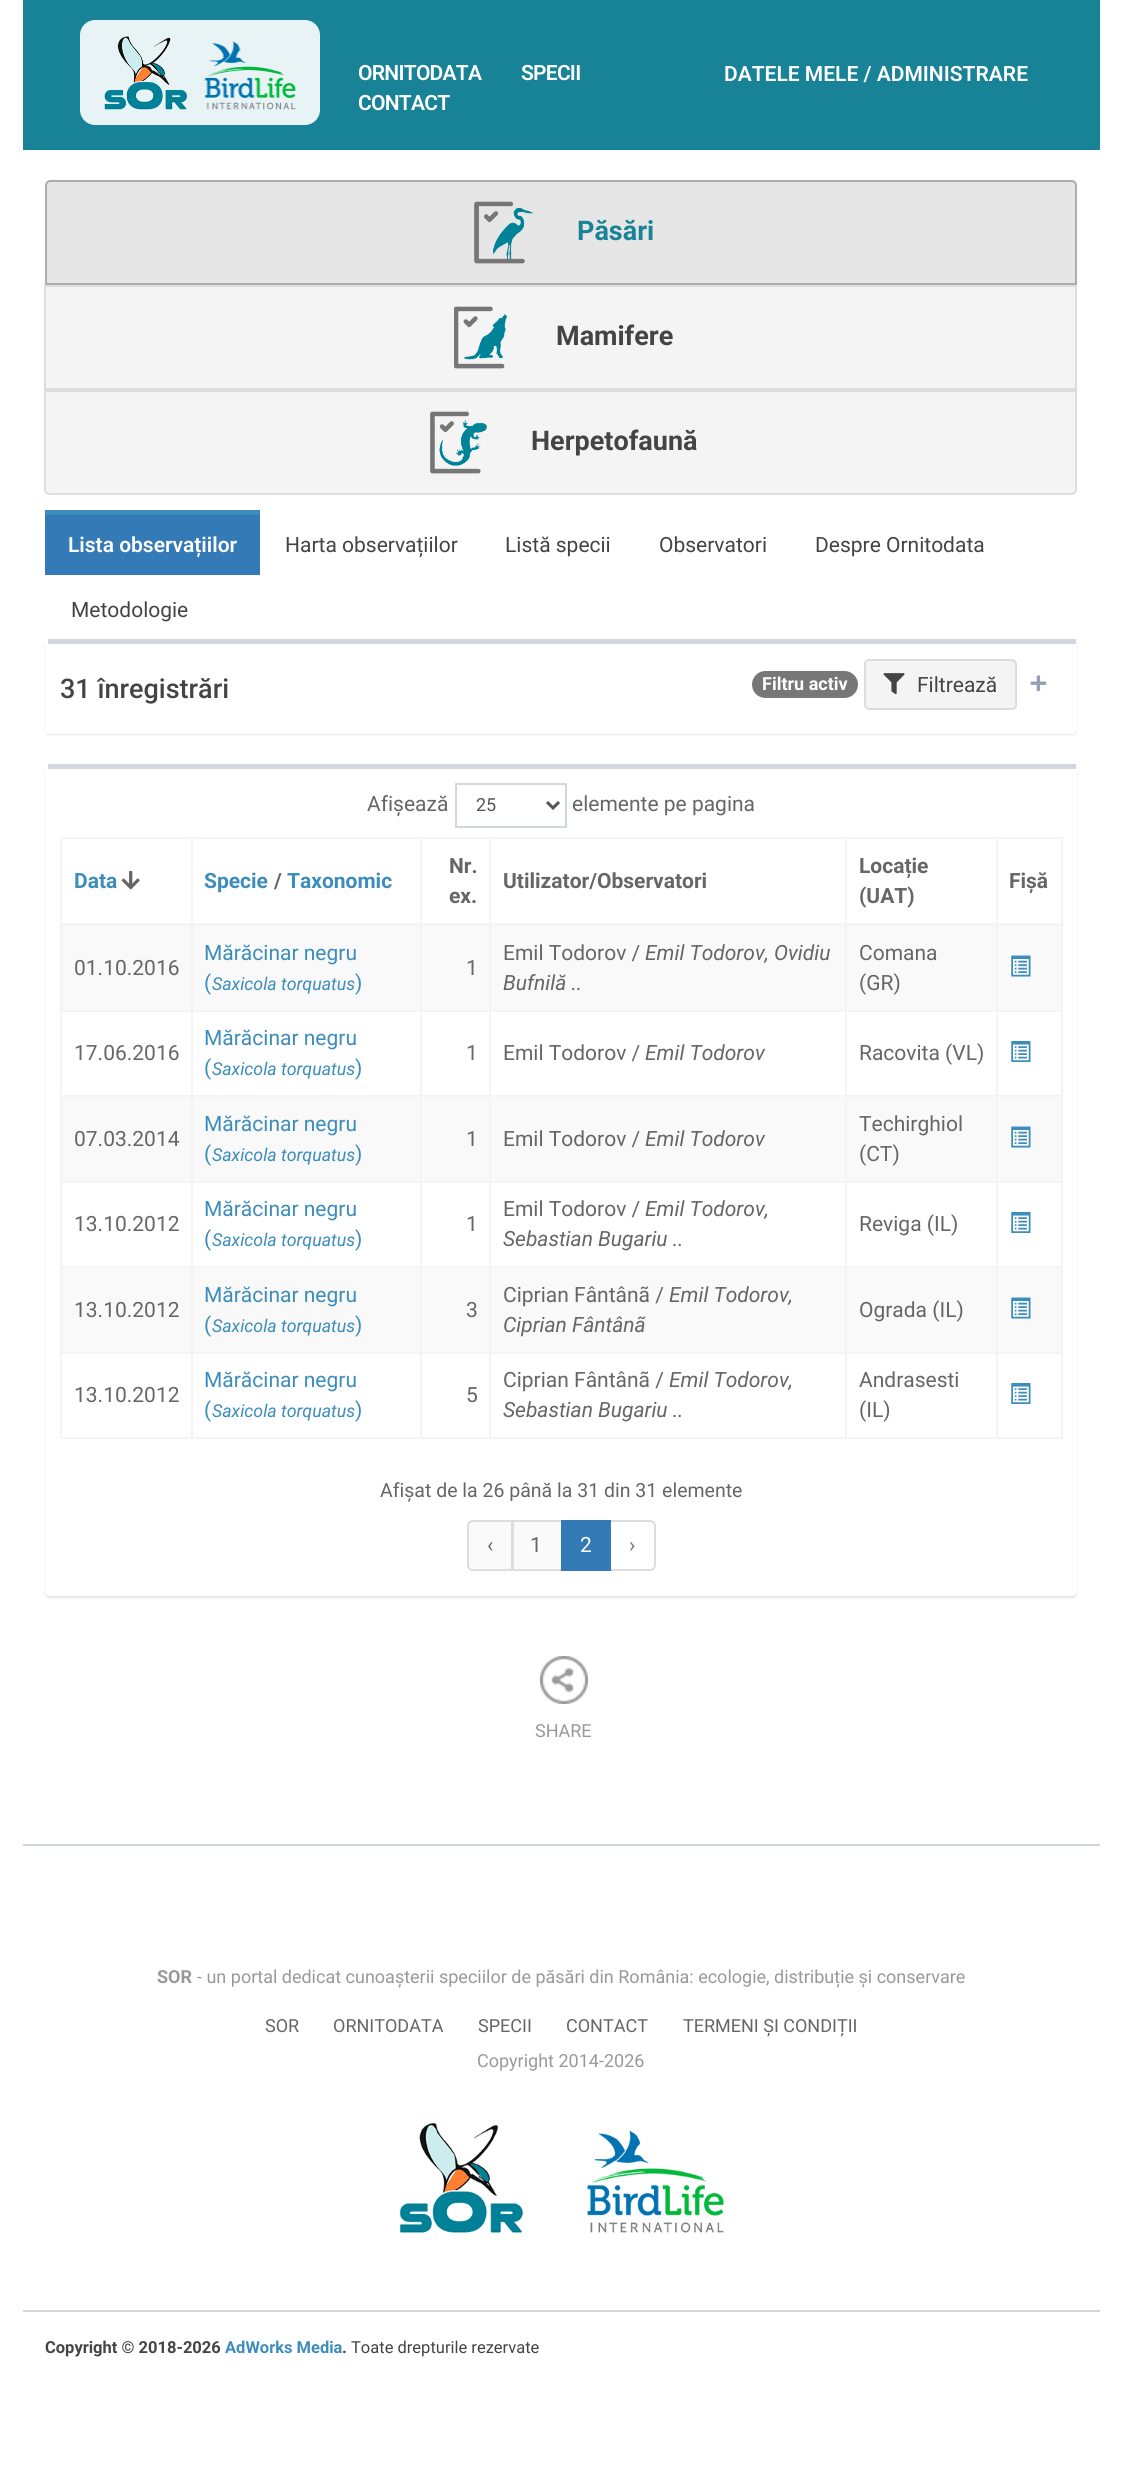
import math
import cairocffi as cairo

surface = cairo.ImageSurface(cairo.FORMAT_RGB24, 1122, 2489)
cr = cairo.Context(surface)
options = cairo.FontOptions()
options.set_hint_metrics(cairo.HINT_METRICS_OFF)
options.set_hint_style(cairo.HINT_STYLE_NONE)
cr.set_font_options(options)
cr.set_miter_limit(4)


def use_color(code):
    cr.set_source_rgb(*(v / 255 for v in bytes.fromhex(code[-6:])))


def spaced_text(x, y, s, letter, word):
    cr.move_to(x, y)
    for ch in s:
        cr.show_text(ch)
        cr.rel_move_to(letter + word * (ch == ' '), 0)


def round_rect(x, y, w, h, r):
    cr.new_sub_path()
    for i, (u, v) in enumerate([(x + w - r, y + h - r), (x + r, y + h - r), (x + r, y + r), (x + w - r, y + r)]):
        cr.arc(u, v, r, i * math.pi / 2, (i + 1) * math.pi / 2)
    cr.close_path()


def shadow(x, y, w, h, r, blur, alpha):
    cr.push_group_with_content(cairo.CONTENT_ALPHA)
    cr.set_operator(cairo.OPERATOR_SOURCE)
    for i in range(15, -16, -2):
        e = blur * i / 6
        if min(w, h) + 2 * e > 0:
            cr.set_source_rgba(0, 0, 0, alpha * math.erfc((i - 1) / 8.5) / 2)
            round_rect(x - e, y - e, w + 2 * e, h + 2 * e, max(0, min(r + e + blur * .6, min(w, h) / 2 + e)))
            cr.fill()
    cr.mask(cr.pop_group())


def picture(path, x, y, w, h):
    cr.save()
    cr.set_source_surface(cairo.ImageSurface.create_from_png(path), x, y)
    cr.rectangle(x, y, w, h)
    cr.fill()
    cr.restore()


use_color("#ffffff")
cr.paint()
use_color("#188296")
cr.rectangle(23, 0, 1077, 150)
cr.fill()
use_color("#e8f3f5")
round_rect(80, 20, 240, 105, 15)
cr.fill()
picture("img1.png", 104, 36, 83, 74)
picture("img2.png", 204, 41, 92, 69)
cr.select_font_face("Roboto SemiBold")
cr.set_font_size(21)
use_color("#ffffff")
spaced_text(358, 80, "ORNITODATA", -0.75, 0)
spaced_text(521, 80, "SPECII", -0.75, 0)
spaced_text(358, 110, "CONTACT", -0.75, 0)
cr.move_to(724, 81)
cr.show_text("DATELE MELE / ADMINISTRARE")
use_color("#e6e6e6")
cr.new_path()
cr.move_to(50, 181)
cr.line_to(1072, 181)
cr.curve_to(1074, 181, 1076, 183, 1076, 185)
cr.line_to(1076, 284)
cr.line_to(46, 284)
cr.line_to(46, 185)
cr.curve_to(46, 183, 48, 181, 50, 181)
cr.close_path()
cr.fill_preserve()
use_color("#adadad")
cr.stroke()
picture("img3.png", 474, 201, 60, 63)
cr.select_font_face("Roboto", cairo.FONT_SLANT_NORMAL, cairo.FONT_WEIGHT_BOLD)
cr.set_font_size(27)
use_color("#188296")
cr.move_to(577, 240)
cr.show_text("Păsări")
use_color("#f4f4f4")
cr.rectangle(45, 286, 1031, 103)
cr.fill_preserve()
use_color("#dddddd")
cr.stroke()
picture("img4.png", 454, 306, 53, 63)
use_color("#444444")
cr.move_to(556, 345)
cr.show_text("Mamifere")
use_color("#f4f4f4")
cr.new_path()
cr.move_to(45, 391)
cr.line_to(1076, 391)
cr.line_to(1076, 490)
cr.curve_to(1076, 492, 1074, 494, 1072, 494)
cr.line_to(49, 494)
cr.curve_to(47, 494, 45, 492, 45, 490)
cr.close_path()
cr.fill_preserve()
use_color("#dddddd")
cr.stroke()
picture("img5.png", 430, 411, 57, 63)
use_color("#444444")
cr.move_to(531, 450)
cr.show_text("Herpetofaună")
use_color("#337ab7")
cr.rectangle(45, 515, 215, 60)
cr.fill()
use_color("#3c8dbc")
cr.rectangle(45, 510, 215, 5)
cr.fill()
cr.select_font_face("Roboto SemiBold")
cr.set_font_size(21)
use_color("#ffffff")
cr.move_to(68, 552)
cr.show_text("Lista observațiilor")
cr.select_font_face("Roboto")
use_color("#444444")
cr.move_to(285, 552)
cr.show_text("Harta observațiilor")
cr.move_to(505, 552)
cr.show_text("Listă specii")
cr.move_to(659, 552)
cr.show_text("Observatori")
cr.move_to(815, 552)
cr.show_text("Despre Ornitodata")
cr.move_to(71, 617)
cr.show_text("Metodologie")
use_color("#000000")
shadow(45, 641, 1032, 94, 5, 1, 0.1)
use_color("#ffffff")
round_rect(45, 639, 1032, 95, 5)
cr.fill()
use_color("#d2d6de")
cr.rectangle(48, 639, 1028, 5)
cr.fill()
cr.select_font_face("Roboto Medium")
cr.set_font_size(27)
use_color("#444444")
cr.move_to(60, 698)
cr.show_text("31 înregistrări")
use_color("#777777")
round_rect(752, 671, 106, 27, 13.5)
cr.fill()
cr.select_font_face("Roboto", cairo.FONT_SLANT_NORMAL, cairo.FONT_WEIGHT_BOLD)
cr.set_font_size(18)
use_color("#ffffff")
cr.move_to(762, 690)
cr.show_text("Filtru activ")
use_color("#f4f4f4")
round_rect(865, 660, 151, 49, 4)
cr.fill_preserve()
use_color("#dddddd")
cr.stroke()
picture("img6.png", 883, 673, 22, 22)
cr.select_font_face("Roboto")
cr.set_font_size(21)
use_color("#444444")
cr.move_to(917, 692)
cr.show_text("Filtrează")
picture("img7.png", 1030, 675, 17, 17)
use_color("#000000")
shadow(45, 765, 1032, 833, 5, 1, 0.1)
use_color("#ffffff")
round_rect(45, 764, 1032, 832, 5)
cr.fill()
use_color("#d2d6de")
cr.rectangle(48, 764, 1028, 5)
cr.fill()
use_color("#666666")
cr.move_to(367, 811)
cr.show_text("Afișează")
cr.rectangle(456, 784, 110, 43)
use_color("#d2d6de")
cr.stroke()
cr.new_path()
cr.move_to(547, 802)
cr.line_to(553, 808)
cr.line_to(559, 802)
use_color("#555555")
cr.set_line_width(3)
cr.stroke()
cr.set_font_size(18)
cr.move_to(476, 811)
cr.show_text("25")
cr.set_font_size(21)
use_color("#666666")
cr.move_to(572, 811)
cr.show_text("elemente pe pagina")
use_color("#f4f4f4")
cr.rectangle(60, 837, 1002, 2)
cr.fill()
cr.rectangle(1061, 837, 2, 602)
cr.fill()
cr.rectangle(60, 1437, 1002, 2)
cr.fill()
cr.rectangle(60, 837, 2, 602)
cr.fill()
cr.select_font_face("Roboto", cairo.FONT_SLANT_NORMAL, cairo.FONT_WEIGHT_BOLD)
use_color("#3c8dbc")
cr.move_to(74, 888)
cr.show_text("Data")
picture("img8.png", 121, 870, 19, 20)
cr.move_to(204, 888)
cr.show_text("Specie")
use_color("#666666")
cr.move_to(274, 888)
cr.show_text("/")
use_color("#3c8dbc")
cr.move_to(287, 888)
cr.show_text("Taxonomic")
use_color("#666666")
cr.move_to(449, 873)
cr.show_text("Nr.")
cr.move_to(449, 903)
cr.show_text("ex.")
cr.move_to(503, 888)
cr.show_text("Utilizator/Observatori")
cr.move_to(859, 873)
cr.show_text("Locație")
cr.move_to(859, 903)
cr.show_text("(UAT)")
use_color("#f9f9f9")
cr.rectangle(62, 926, 999, 84)
cr.fill()
use_color("#f4f4f4")
cr.rectangle(996, 1010, 66, 2)
cr.fill()
cr.rectangle(996, 1095, 66, 2)
cr.fill()
use_color("#f9f9f9")
cr.rectangle(62, 1097, 999, 84)
cr.fill()
use_color("#f4f4f4")
cr.rectangle(996, 1181, 66, 2)
cr.fill()
cr.rectangle(996, 1266, 66, 2)
cr.fill()
use_color("#f9f9f9")
cr.rectangle(62, 1268, 999, 84)
cr.fill()
use_color("#f4f4f4")
cr.rectangle(996, 1352, 66, 2)
cr.fill()
cr.rectangle(996, 1352, 2, 87)
cr.fill()
cr.rectangle(845, 1352, 153, 2)
cr.fill()
cr.rectangle(996, 1266, 2, 87)
cr.fill()
cr.rectangle(845, 1266, 153, 2)
cr.fill()
cr.rectangle(996, 1181, 2, 87)
cr.fill()
cr.rectangle(845, 1181, 153, 2)
cr.fill()
cr.rectangle(996, 1095, 2, 87)
cr.fill()
cr.rectangle(845, 1095, 153, 2)
cr.fill()
cr.rectangle(996, 1010, 2, 87)
cr.fill()
cr.rectangle(845, 1010, 153, 2)
cr.fill()
cr.rectangle(845, 1352, 2, 87)
cr.fill()
cr.rectangle(489, 1352, 357, 2)
cr.fill()
cr.rectangle(845, 1266, 2, 87)
cr.fill()
cr.rectangle(489, 1266, 357, 2)
cr.fill()
cr.rectangle(845, 1181, 2, 87)
cr.fill()
cr.rectangle(489, 1181, 357, 2)
cr.fill()
cr.rectangle(845, 1095, 2, 87)
cr.fill()
cr.rectangle(489, 1095, 357, 2)
cr.fill()
cr.rectangle(845, 1010, 2, 87)
cr.fill()
cr.rectangle(489, 1010, 357, 2)
cr.fill()
cr.rectangle(489, 1352, 2, 87)
cr.fill()
cr.rectangle(420, 1352, 71, 2)
cr.fill()
cr.rectangle(489, 1266, 2, 87)
cr.fill()
cr.rectangle(420, 1266, 71, 2)
cr.fill()
cr.rectangle(489, 1181, 2, 87)
cr.fill()
cr.rectangle(420, 1181, 71, 2)
cr.fill()
cr.rectangle(489, 1095, 2, 87)
cr.fill()
cr.rectangle(420, 1095, 71, 2)
cr.fill()
cr.rectangle(489, 1010, 2, 87)
cr.fill()
cr.rectangle(420, 1010, 71, 2)
cr.fill()
cr.rectangle(420, 1352, 2, 87)
cr.fill()
cr.rectangle(191, 1352, 231, 2)
cr.fill()
cr.rectangle(420, 1266, 2, 87)
cr.fill()
cr.rectangle(191, 1266, 231, 2)
cr.fill()
cr.rectangle(420, 1181, 2, 87)
cr.fill()
cr.rectangle(191, 1181, 231, 2)
cr.fill()
cr.rectangle(420, 1095, 2, 87)
cr.fill()
cr.rectangle(191, 1095, 231, 2)
cr.fill()
cr.rectangle(420, 1010, 2, 87)
cr.fill()
cr.rectangle(191, 1010, 231, 2)
cr.fill()
cr.rectangle(191, 1352, 2, 87)
cr.fill()
cr.rectangle(60, 1352, 132, 2)
cr.fill()
cr.rectangle(191, 1266, 2, 87)
cr.fill()
cr.rectangle(60, 1266, 132, 2)
cr.fill()
cr.rectangle(191, 1181, 2, 87)
cr.fill()
cr.rectangle(60, 1181, 132, 2)
cr.fill()
cr.rectangle(191, 1095, 2, 87)
cr.fill()
cr.rectangle(60, 1095, 132, 2)
cr.fill()
cr.rectangle(191, 1010, 2, 87)
cr.fill()
cr.rectangle(60, 1010, 132, 2)
cr.fill()
cr.rectangle(191, 837, 2, 174)
cr.fill()
cr.rectangle(420, 837, 2, 174)
cr.fill()
cr.rectangle(489, 837, 2, 174)
cr.fill()
cr.rectangle(845, 837, 2, 174)
cr.fill()
cr.rectangle(996, 837, 2, 174)
cr.fill()
cr.rectangle(60, 923, 1004, 3)
cr.fill()
use_color("#666666")
cr.move_to(1009, 888)
cr.show_text("Fișă")
cr.select_font_face("Roboto")
cr.move_to(74, 975)
cr.show_text("01.10.2016")
use_color("#3c8dbc")
cr.move_to(204, 960)
cr.show_text("Mărăcinar negru")
cr.move_to(204, 990)
cr.show_text("(")
cr.select_font_face("Roboto", cairo.FONT_SLANT_ITALIC)
cr.set_font_size(17.75)
cr.move_to(212, 990)
cr.show_text("Saxicola torquatus")
cr.select_font_face("Roboto")
cr.set_font_size(21)
cr.move_to(355, 990)
cr.show_text(")")
use_color("#666666")
cr.move_to(466, 975)
cr.show_text("1")
cr.move_to(503, 960)
cr.show_text("Emil Todorov /")
cr.select_font_face("Roboto", cairo.FONT_SLANT_ITALIC)
cr.move_to(645, 960)
cr.show_text("Emil Todorov, Ovidiu")
cr.move_to(503, 990)
cr.show_text("Bufnilă ..")
cr.select_font_face("Roboto")
cr.move_to(859, 960)
cr.show_text("Comana")
cr.move_to(859, 990)
cr.show_text("(GR)")
picture("img9.png", 1011, 955, 20, 22)
cr.move_to(74, 1060)
cr.show_text("17.06.2016")
use_color("#3c8dbc")
cr.move_to(204, 1045)
cr.show_text("Mărăcinar negru")
cr.move_to(204, 1075)
cr.show_text("(")
cr.select_font_face("Roboto", cairo.FONT_SLANT_ITALIC)
cr.set_font_size(17.75)
cr.move_to(212, 1075)
cr.show_text("Saxicola torquatus")
cr.select_font_face("Roboto")
cr.set_font_size(21)
cr.move_to(355, 1075)
cr.show_text(")")
use_color("#666666")
cr.move_to(466, 1060)
cr.show_text("1")
cr.move_to(503, 1060)
cr.show_text("Emil Todorov /")
cr.select_font_face("Roboto", cairo.FONT_SLANT_ITALIC)
cr.move_to(645, 1060)
cr.show_text("Emil Todorov")
cr.select_font_face("Roboto")
cr.move_to(859, 1060)
cr.show_text("Racovita (VL)")
picture("img10.png", 1011, 1041, 20, 21)
cr.move_to(74, 1146)
cr.show_text("07.03.2014")
use_color("#3c8dbc")
cr.move_to(204, 1131)
cr.show_text("Mărăcinar negru")
cr.move_to(204, 1161)
cr.show_text("(")
cr.select_font_face("Roboto", cairo.FONT_SLANT_ITALIC)
cr.set_font_size(17.75)
cr.move_to(212, 1161)
cr.show_text("Saxicola torquatus")
cr.select_font_face("Roboto")
cr.set_font_size(21)
cr.move_to(355, 1161)
cr.show_text(")")
use_color("#666666")
cr.move_to(466, 1146)
cr.show_text("1")
cr.move_to(503, 1146)
cr.show_text("Emil Todorov /")
cr.select_font_face("Roboto", cairo.FONT_SLANT_ITALIC)
cr.move_to(645, 1146)
cr.show_text("Emil Todorov")
cr.select_font_face("Roboto")
cr.move_to(859, 1131)
cr.show_text("Techirghiol")
cr.move_to(859, 1161)
cr.show_text("(CT)")
picture("img9.png", 1011, 1126, 20, 22)
cr.move_to(74, 1231)
cr.show_text("13.10.2012")
use_color("#3c8dbc")
cr.move_to(204, 1216)
cr.show_text("Mărăcinar negru")
cr.move_to(204, 1246)
cr.show_text("(")
cr.select_font_face("Roboto", cairo.FONT_SLANT_ITALIC)
cr.set_font_size(17.75)
cr.move_to(212, 1246)
cr.show_text("Saxicola torquatus")
cr.select_font_face("Roboto")
cr.set_font_size(21)
cr.move_to(355, 1246)
cr.show_text(")")
use_color("#666666")
cr.move_to(466, 1231)
cr.show_text("1")
cr.move_to(503, 1216)
cr.show_text("Emil Todorov /")
cr.select_font_face("Roboto", cairo.FONT_SLANT_ITALIC)
cr.move_to(645, 1216)
cr.show_text("Emil Todorov,")
cr.move_to(503, 1246)
cr.show_text("Sebastian Bugariu ..")
cr.select_font_face("Roboto")
cr.move_to(859, 1231)
cr.show_text("Reviga (IL)")
picture("img10.png", 1011, 1212, 20, 21)
cr.move_to(74, 1317)
cr.show_text("13.10.2012")
use_color("#3c8dbc")
cr.move_to(204, 1302)
cr.show_text("Mărăcinar negru")
cr.move_to(204, 1332)
cr.show_text("(")
cr.select_font_face("Roboto", cairo.FONT_SLANT_ITALIC)
cr.set_font_size(17.75)
cr.move_to(212, 1332)
cr.show_text("Saxicola torquatus")
cr.select_font_face("Roboto")
cr.set_font_size(21)
cr.move_to(355, 1332)
cr.show_text(")")
use_color("#666666")
cr.move_to(466, 1317)
cr.show_text("3")
cr.move_to(503, 1302)
cr.show_text("Ciprian Fântânã /")
cr.select_font_face("Roboto", cairo.FONT_SLANT_ITALIC)
cr.move_to(669, 1302)
cr.show_text("Emil Todorov,")
cr.move_to(503, 1332)
cr.show_text("Ciprian Fântânã")
cr.select_font_face("Roboto")
cr.move_to(859, 1317)
cr.show_text("Ograda (IL)")
picture("img9.png", 1011, 1297, 20, 22)
cr.move_to(74, 1402)
cr.show_text("13.10.2012")
use_color("#3c8dbc")
cr.move_to(204, 1387)
cr.show_text("Mărăcinar negru")
cr.move_to(204, 1417)
cr.show_text("(")
cr.select_font_face("Roboto", cairo.FONT_SLANT_ITALIC)
cr.set_font_size(17.75)
cr.move_to(212, 1417)
cr.show_text("Saxicola torquatus")
cr.select_font_face("Roboto")
cr.set_font_size(21)
cr.move_to(355, 1417)
cr.show_text(")")
use_color("#666666")
cr.move_to(466, 1402)
cr.show_text("5")
cr.move_to(503, 1387)
cr.show_text("Ciprian Fântânã /")
cr.select_font_face("Roboto", cairo.FONT_SLANT_ITALIC)
cr.move_to(669, 1387)
cr.show_text("Emil Todorov,")
cr.move_to(503, 1417)
cr.show_text("Sebastian Bugariu ..")
cr.select_font_face("Roboto")
cr.move_to(859, 1387)
cr.show_text("Andrasesti")
cr.move_to(859, 1417)
cr.show_text("(IL)")
picture("img10.png", 1011, 1383, 20, 21)
cr.set_font_size(19.5)
cr.move_to(380, 1497)
cr.show_text("Afișat de la 26 până la 31 din 31 elemente")
use_color("#fafafa")
cr.new_path()
cr.move_to(473, 1521)
cr.line_to(512, 1521)
cr.line_to(512, 1570)
cr.line_to(473, 1570)
cr.curve_to(470, 1570, 468, 1568, 468, 1565)
cr.line_to(468, 1526)
cr.curve_to(468, 1523, 470, 1521, 473, 1521)
cr.close_path()
cr.fill_preserve()
use_color("#dddddd")
cr.set_line_width(2)
cr.stroke()
cr.set_font_size(21)
use_color("#666666")
cr.move_to(487, 1552)
cr.show_text("‹")
use_color("#fafafa")
cr.rectangle(513, 1521, 49, 49)
cr.fill_preserve()
use_color("#dddddd")
cr.stroke()
use_color("#666666")
cr.move_to(530, 1552)
cr.show_text("1")
cr.new_path()
cr.move_to(610, 1521)
cr.line_to(650, 1521)
cr.curve_to(653, 1521, 655, 1523, 655, 1526)
cr.line_to(655, 1565)
cr.curve_to(655, 1568, 653, 1570, 650, 1570)
cr.line_to(610, 1570)
cr.close_path()
use_color("#dddddd")
cr.stroke()
use_color("#337ab7")
cr.rectangle(561, 1520, 50, 51)
cr.fill()
use_color("#ffffff")
cr.move_to(580, 1552)
cr.show_text("2")
use_color("#777777")
cr.move_to(629, 1552)
cr.show_text("›")
picture("img11.png", 540, 1656, 48, 48)
cr.set_font_size(18)
use_color("#999999")
cr.move_to(535, 1737)
cr.show_text("SHARE")
use_color("#d2d6de")
cr.rectangle(23, 1844, 1077, 2)
cr.fill()
cr.select_font_face("Roboto", cairo.FONT_SLANT_NORMAL, cairo.FONT_WEIGHT_BOLD)
use_color("#999999")
cr.move_to(157, 1983)
cr.show_text("SOR")
cr.select_font_face("Roboto")
cr.move_to(197, 1983)
cr.show_text("- un portal dedicat cunoașterii speciilor de păsări din România: ecologie, distribuție și conservare")
use_color("#666666")
cr.move_to(265, 2032)
cr.show_text("SOR")
cr.move_to(333, 2032)
cr.show_text("ORNITODATA")
cr.move_to(478, 2032)
cr.show_text("SPECII")
cr.move_to(566, 2032)
cr.show_text("CONTACT")
cr.move_to(683, 2032)
cr.show_text("TERMENI ȘI CONDIȚII")
use_color("#999999")
cr.move_to(477, 2067)
cr.show_text("Copyright 2014-2026")
picture("img12.png", 399, 2123, 124, 110)
picture("img13.png", 587, 2130, 137, 103)
use_color("#d2d6de")
cr.rectangle(23, 2310, 1077, 2)
cr.fill()
cr.select_font_face("Roboto", cairo.FONT_SLANT_NORMAL, cairo.FONT_WEIGHT_BOLD)
cr.set_font_size(16.5)
use_color("#444444")
cr.move_to(45, 2353)
cr.show_text("Copyright © 2018-2026")
use_color("#3c8dbc")
cr.move_to(225, 2353)
cr.show_text("AdWorks Media")
use_color("#444444")
cr.move_to(342, 2353)
cr.show_text(".")
cr.select_font_face("Roboto")
cr.move_to(351, 2353)
cr.show_text("Toate drepturile rezervate")
surface.write_to_png("result.png")
